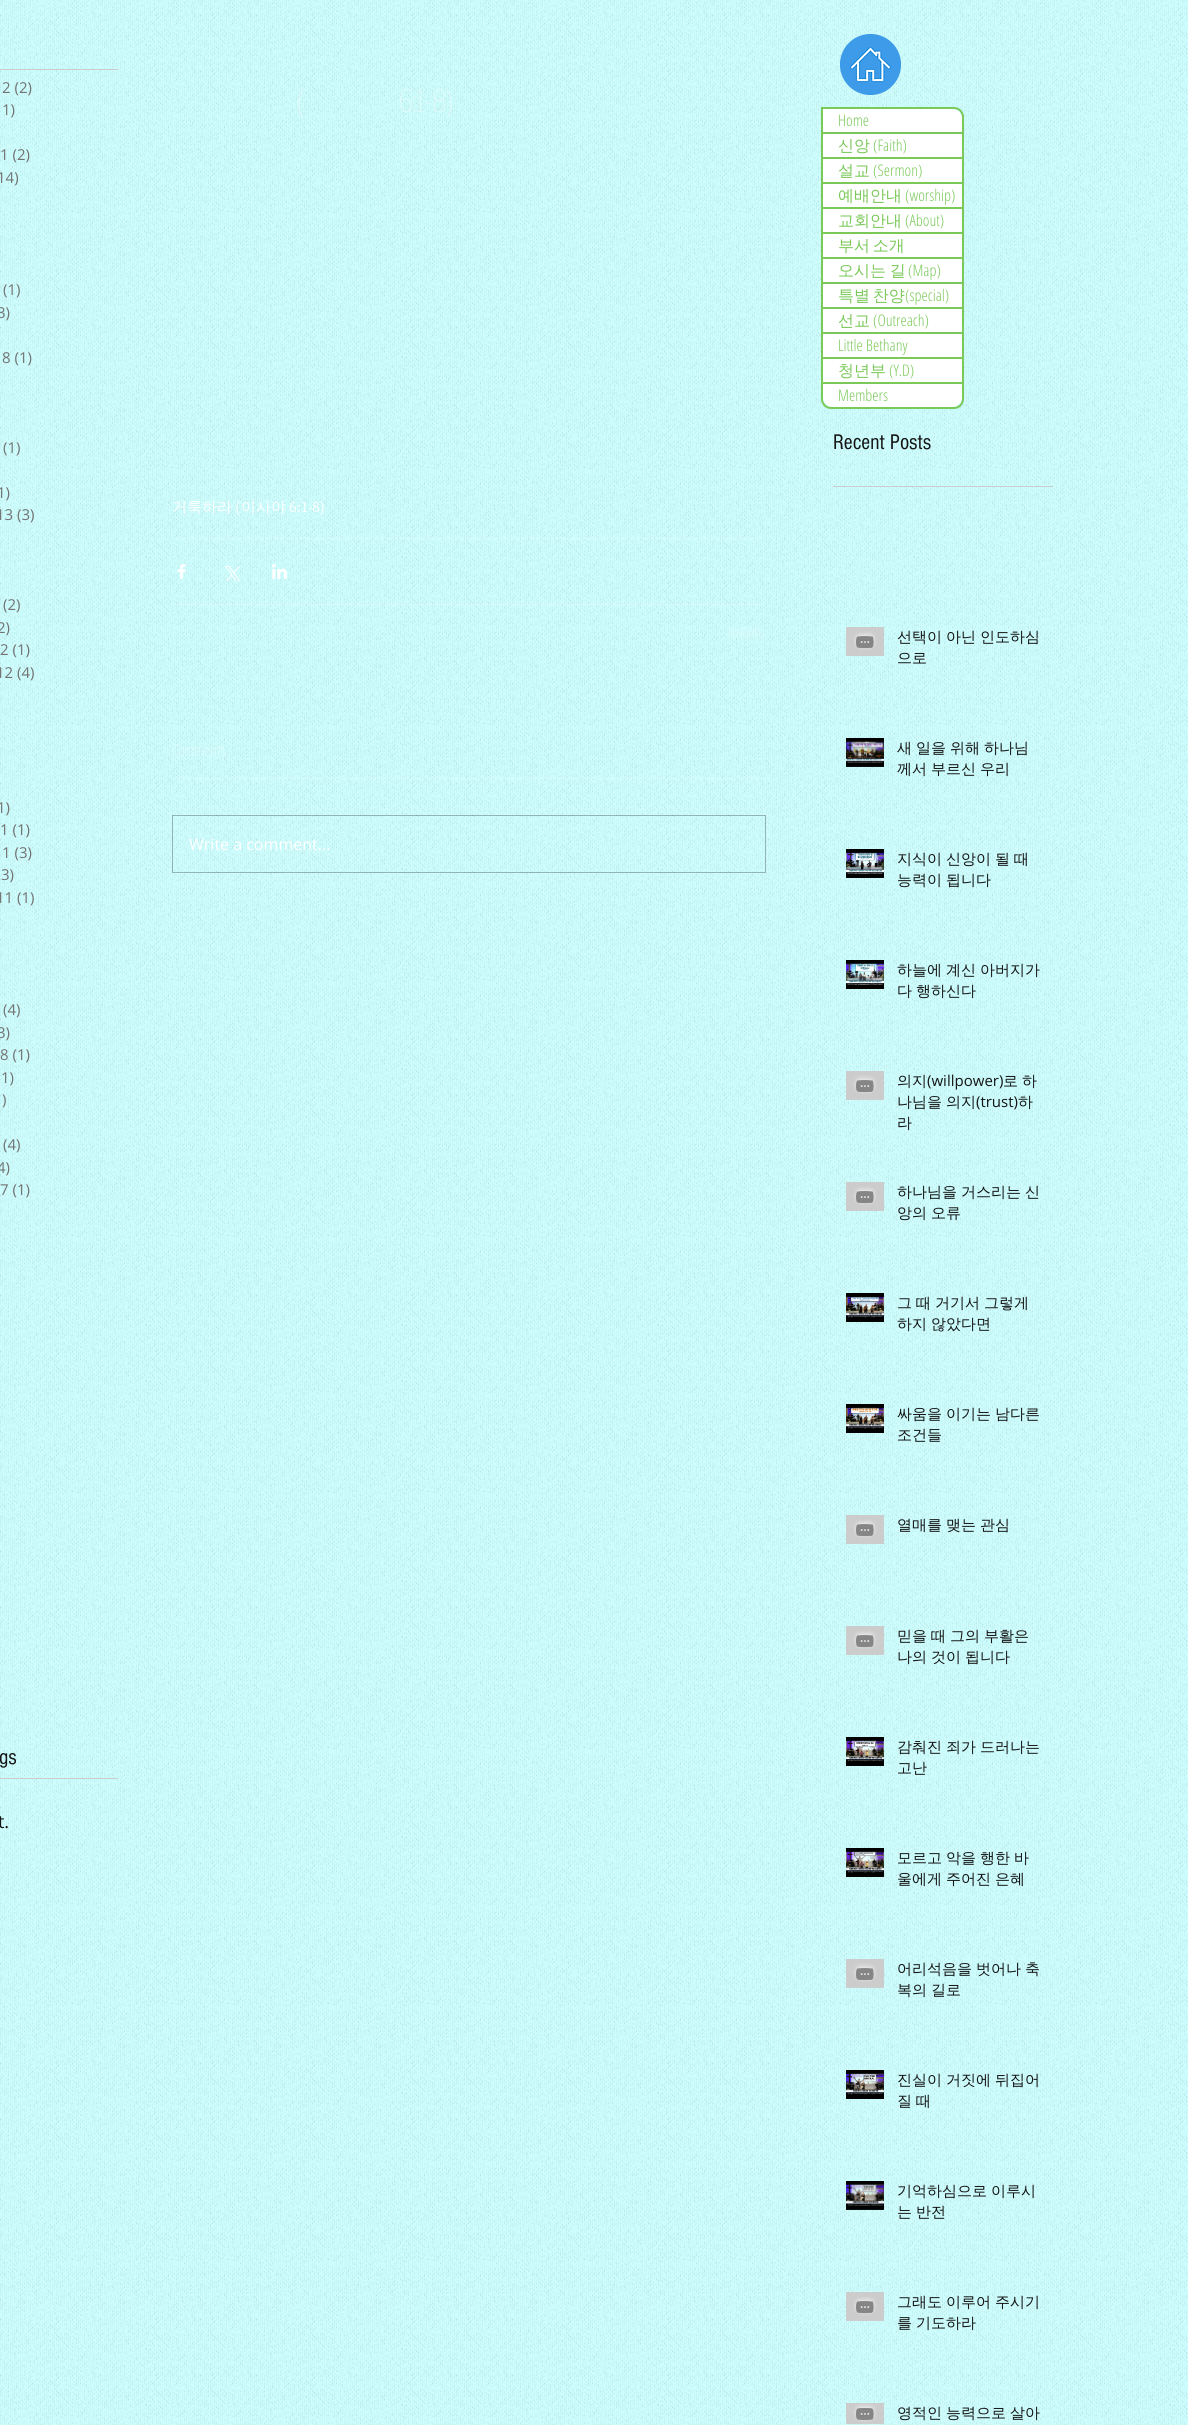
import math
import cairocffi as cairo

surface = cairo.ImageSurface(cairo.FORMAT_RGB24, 1188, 2425)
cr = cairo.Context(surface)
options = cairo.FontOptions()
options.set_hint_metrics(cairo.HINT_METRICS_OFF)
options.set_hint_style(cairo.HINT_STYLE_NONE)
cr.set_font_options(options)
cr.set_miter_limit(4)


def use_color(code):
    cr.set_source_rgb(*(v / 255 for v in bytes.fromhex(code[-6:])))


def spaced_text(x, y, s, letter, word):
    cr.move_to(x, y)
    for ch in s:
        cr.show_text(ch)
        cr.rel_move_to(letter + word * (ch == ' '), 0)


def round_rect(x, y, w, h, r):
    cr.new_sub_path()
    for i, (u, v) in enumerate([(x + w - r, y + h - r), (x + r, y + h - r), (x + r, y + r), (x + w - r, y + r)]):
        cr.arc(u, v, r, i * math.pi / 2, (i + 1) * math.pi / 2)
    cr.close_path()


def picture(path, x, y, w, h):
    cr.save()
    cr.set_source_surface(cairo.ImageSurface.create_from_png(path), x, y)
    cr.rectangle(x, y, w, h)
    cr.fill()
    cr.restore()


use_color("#cfffff")
cr.paint()
picture("img1.png", 0, 0, 1188, 2425)
use_color("#cdcccc")
cr.rectangle(0, 69, 118, 1)
cr.fill()
picture("img2.png", 840, 34, 61, 61)
cr.select_font_face("Open Sans")
cr.set_font_size(15)
use_color("#727272")
cr.move_to(2, 93)
cr.show_text("2 (2)")
cr.move_to(2, 115)
cr.show_text("1)")
cr.move_to(0, 160)
cr.show_text("1 (2)")
cr.move_to(-3, 183)
cr.show_text("14)")
cr.move_to(3, 295)
cr.show_text("(1)")
cr.move_to(-3, 318)
cr.show_text("3)")
cr.move_to(2, 363)
cr.show_text("8 (1)")
cr.move_to(3, 453)
cr.show_text("(1)")
cr.move_to(-3, 498)
cr.show_text("1)")
cr.move_to(-4, 520)
cr.show_text("13 (3)")
cr.move_to(3, 610)
cr.show_text("(2)")
cr.move_to(-3, 633)
cr.show_text("2)")
cr.move_to(0, 655)
cr.show_text("2 (1)")
cr.move_to(-4, 678)
cr.show_text("12 (4)")
cr.move_to(-3, 813)
cr.show_text("1)")
cr.move_to(0, 835)
cr.show_text("1 (1)")
cr.move_to(2, 858)
cr.show_text("1 (3)")
cr.move_to(1, 880)
cr.show_text("3)")
cr.move_to(-4, 903)
cr.show_text("11 (1)")
cr.move_to(3, 1015)
cr.show_text("(4)")
cr.move_to(-3, 1038)
cr.show_text("3)")
cr.move_to(0, 1060)
cr.show_text("8 (1)")
cr.move_to(1, 1083)
cr.show_text("1)")
cr.move_to(2, 1105)
cr.show_text(")")
cr.move_to(3, 1150)
cr.show_text("(4)")
cr.move_to(-3, 1173)
cr.show_text("4)")
cr.move_to(0, 1195)
cr.show_text("7 (1)")
cr.new_path()
cr.move_to(822, 108)
cr.line_to(954, 108)
cr.curve_to(959, 108, 963, 112, 963, 117)
cr.line_to(963, 399)
cr.curve_to(963, 404, 959, 408, 954, 408)
cr.line_to(831, 408)
cr.curve_to(826, 408, 822, 404, 822, 399)
cr.close_path()
use_color("#7ac959")
cr.stroke()
cr.rectangle(823, 132, 139, 2)
cr.fill()
use_color("#ffffff")
cr.new_path()
cr.move_to(823, 109)
cr.line_to(952, 109)
cr.curve_to(957.5, 109, 962, 113.5, 962, 119)
cr.line_to(962, 132)
cr.line_to(823, 132)
cr.close_path()
cr.fill()
cr.select_font_face("Open Sans Condensed Light")
cr.set_font_size(16)
use_color("#7ac959")
cr.move_to(838, 126)
cr.show_text("Home")
cr.rectangle(823, 157, 139, 2)
cr.fill()
use_color("#ffffff")
cr.rectangle(823, 134, 139, 23)
cr.fill()
cr.select_font_face("WenQuanYi Zen Hei Medium")
use_color("#7ac959")
cr.move_to(838, 151)
cr.show_text("신앙")
cr.select_font_face("Open Sans Condensed Light")
cr.move_to(873, 151)
cr.show_text("(Faith)")
cr.rectangle(823, 182, 139, 2)
cr.fill()
use_color("#ffffff")
cr.rectangle(823, 159, 139, 23)
cr.fill()
cr.select_font_face("WenQuanYi Zen Hei Medium")
use_color("#7ac959")
cr.move_to(838, 176)
cr.show_text("설교")
cr.select_font_face("Open Sans Condensed Light")
cr.move_to(873, 176)
cr.show_text("(Sermon)")
cr.rectangle(823, 207, 139, 2)
cr.fill()
use_color("#ffffff")
cr.rectangle(823, 184, 139, 23)
cr.fill()
cr.select_font_face("WenQuanYi Zen Hei Medium")
use_color("#7ac959")
cr.move_to(838, 201)
cr.show_text("예배안내")
cr.select_font_face("Open Sans Condensed Light")
cr.move_to(905, 201)
cr.show_text("(worship)")
cr.rectangle(823, 232, 139, 2)
cr.fill()
use_color("#ffffff")
cr.rectangle(823, 209, 139, 23)
cr.fill()
cr.select_font_face("WenQuanYi Zen Hei Medium")
use_color("#7ac959")
cr.move_to(838, 226)
cr.show_text("교회안내")
cr.select_font_face("Open Sans Condensed Light")
cr.move_to(905, 226)
cr.show_text("(About)")
cr.rectangle(823, 257, 139, 2)
cr.fill()
use_color("#ffffff")
cr.rectangle(823, 234, 139, 23)
cr.fill()
cr.select_font_face("WenQuanYi Zen Hei Medium")
use_color("#7ac959")
spaced_text(838, 251, "부서 소개", 0, -2)
cr.rectangle(823, 282, 139, 2)
cr.fill()
use_color("#ffffff")
cr.rectangle(823, 259, 139, 23)
cr.fill()
use_color("#7ac959")
spaced_text(838, 276, "오시는 길", 0, -1)
cr.select_font_face("Open Sans Condensed Light")
cr.move_to(908, 276)
cr.show_text("(Map)")
cr.rectangle(823, 307, 139, 2)
cr.fill()
use_color("#ffffff")
cr.rectangle(823, 284, 139, 23)
cr.fill()
cr.select_font_face("WenQuanYi Zen Hei Medium")
use_color("#7ac959")
spaced_text(838, 301, "특별 찬양", 0, -2)
cr.select_font_face("Open Sans Condensed Light")
cr.move_to(905, 301)
cr.show_text("(special)")
cr.rectangle(823, 332, 139, 2)
cr.fill()
use_color("#ffffff")
cr.rectangle(823, 309, 139, 23)
cr.fill()
cr.select_font_face("WenQuanYi Zen Hei Medium")
use_color("#7ac959")
cr.move_to(838, 326)
cr.show_text("선교")
cr.select_font_face("Open Sans Condensed Light")
cr.move_to(873, 326)
cr.show_text("(Outreach)")
cr.rectangle(823, 357, 139, 2)
cr.fill()
use_color("#ffffff")
cr.rectangle(823, 334, 139, 23)
cr.fill()
use_color("#7ac959")
cr.move_to(838, 351)
cr.show_text("Little Bethany")
cr.rectangle(823, 382, 139, 2)
cr.fill()
use_color("#ffffff")
cr.rectangle(823, 359, 139, 23)
cr.fill()
cr.select_font_face("WenQuanYi Zen Hei Medium")
use_color("#7ac959")
cr.move_to(838, 376)
cr.show_text("청년부")
cr.select_font_face("Open Sans Condensed Light")
cr.move_to(889, 376)
cr.show_text("(Y.D)")
use_color("#ffffff")
cr.new_path()
cr.move_to(823, 384)
cr.line_to(962, 384)
cr.line_to(962, 397)
cr.curve_to(962, 402.5, 957.5, 407, 952, 407)
cr.line_to(833, 407)
cr.curve_to(827.5, 407, 823, 402.5, 823, 397)
cr.close_path()
cr.fill()
use_color("#7ac959")
cr.move_to(838, 401)
cr.show_text("Members")
cr.select_font_face("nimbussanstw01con")
cr.set_font_size(22)
use_color("#141414")
cr.move_to(833, 449)
cr.show_text("Recent Posts")
use_color("#cdcccc")
cr.rectangle(833, 486, 220, 1)
cr.fill()
use_color("#141414")
cr.move_to(-1, 1764)
cr.show_text("gs")
use_color("#f9f9f9")
cr.new_path()
cr.move_to(303, 118)
cr.line_to(302.5, 118)
cr.curve_to(297, 110, 297, 97.5, 302.5, 89.5)
cr.line_to(303, 89.5)
cr.curve_to(297.5, 98, 297.5, 109.5, 303, 118)
cr.close_path()
cr.fill()
picture("img3.png", 400, 89, 52, 29)
cr.select_font_face("WenQuanYi Zen Hei Medium")
cr.set_font_size(15)
use_color("#ffffff")
cr.move_to(172, 512)
cr.show_text("거룩하라")
cr.select_font_face("Overlock")
cr.move_to(235, 512)
cr.show_text("(")
cr.select_font_face("WenQuanYi Zen Hei Medium")
cr.move_to(241, 512)
cr.show_text("이사야")
cr.select_font_face("Overlock")
cr.move_to(289, 512)
cr.show_text("6:1-8)")
cr.set_source_rgba(1, 1, 1, 0.2)
cr.rectangle(172, 538, 594, 1)
cr.fill()
picture("img4.png", 177, 564, 9, 15)
picture("img5.png", 225, 566, 15, 15)
picture("img6.png", 272, 564, 15, 15)
cr.rectangle(172, 604, 594, 1)
cr.fill()
cr.set_source_rgba(1, 1, 1, 0.12)
round_rect(726, 628, 37, 10, 5)
cr.fill()
picture("img7.png", 172, 744, 54, 13)
cr.set_source_rgba(1, 1, 1, 0.2)
cr.rectangle(172, 778, 594, 1)
cr.fill()
cr.rectangle(172.5, 815.5, 593, 57)
cr.set_source_rgba(0.078, 0.078, 0.078, 0.3)
cr.set_line_width(1)
cr.stroke()
cr.select_font_face("Open Sans")
cr.set_font_size(16)
use_color("#ffffff")
cr.move_to(189, 850)
cr.show_text("Write a comment...")
picture("img8.png", 846, 627, 38, 29)
use_color("#cccccc")
cr.rectangle(847, 655, 37, 1)
cr.fill()
cr.select_font_face("WenQuanYi Zen Hei Medium")
cr.set_font_size(15)
use_color("#141414")
spaced_text(897, 642, "선택이 아닌 인도하심", 0, -0.5)
cr.move_to(897, 663)
cr.show_text("으로")
picture("img9.png", 846, 738, 38, 29)
cr.set_source_rgba(0, 0, 0, 0.76)
cr.rectangle(846, 766, 38, 1)
cr.fill()
use_color("#141414")
spaced_text(897, 753, "새 일을 위해 하나님", 0, -0.5)
spaced_text(897, 774, "께서 부르신 우리", 0, -0.5)
picture("img10.png", 846, 849, 38, 29)
cr.set_source_rgba(0, 0, 0, 0.89)
cr.rectangle(846, 877, 38, 1)
cr.fill()
use_color("#141414")
spaced_text(897, 864, "지식이 신앙이 될 때", 0, -0.5)
spaced_text(897, 885, "능력이 됩니다", 0, -0.5)
picture("img11.png", 846, 960, 38, 28)
use_color("#020303")
cr.rectangle(846, 988, 38, 1)
cr.fill()
use_color("#141414")
spaced_text(897, 975, "하늘에 계신 아버지가", 0, -0.5)
spaced_text(897, 996, "다 행하신다", 0, -0.5)
picture("img12.png", 846, 1071, 38, 29)
cr.set_source_rgba(0.8, 0.8, 0.8, 0.89)
cr.rectangle(846, 1099, 38, 1)
cr.fill()
use_color("#141414")
cr.move_to(897, 1086)
cr.show_text("의지")
cr.select_font_face("Open Sans")
cr.move_to(927, 1086)
cr.show_text("(willpower)")
cr.select_font_face("WenQuanYi Zen Hei Medium")
spaced_text(1003, 1086, "로 하", 0, -0.5)
spaced_text(897, 1107, "나님을 의지", 0, -0.5)
cr.select_font_face("Open Sans")
cr.move_to(976, 1107)
cr.show_text("(trust)")
cr.select_font_face("WenQuanYi Zen Hei Medium")
cr.move_to(1018, 1107)
cr.show_text("하")
cr.move_to(897, 1128)
cr.show_text("라")
picture("img13.png", 846, 1182, 38, 29)
use_color("#cccdcd")
cr.rectangle(847, 1210, 37, 1)
cr.fill()
use_color("#141414")
spaced_text(897, 1197, "하나님을 거스리는 신", 0, -0.5)
spaced_text(897, 1218, "앙의 오류", 0, -0.5)
picture("img14.png", 846, 1293, 38, 29)
cr.set_source_rgba(0, 0, 0, 0.89)
cr.rectangle(846, 1321, 38, 1)
cr.fill()
use_color("#141414")
spaced_text(897, 1308, "그 때 거기서 그렇게", 0, -0.5)
spaced_text(897, 1329, "하지 않았다면", 0, -0.5)
picture("img15.png", 846, 1404, 38, 28)
use_color("#020303")
cr.rectangle(846, 1432, 38, 1)
cr.fill()
use_color("#141414")
spaced_text(897, 1419, "싸움을 이기는 남다른", 0, -0.5)
cr.move_to(897, 1440)
cr.show_text("조건들")
picture("img16.png", 846, 1515, 38, 28)
use_color("#cccdcd")
cr.rectangle(846, 1543, 38, 1)
cr.fill()
use_color("#141414")
spaced_text(897, 1530, "열매를 맺는 관심", 0, -0.5)
picture("img17.png", 846, 1626, 38, 29)
use_color("#cccdcd")
cr.rectangle(847, 1654, 37, 1)
cr.fill()
use_color("#141414")
spaced_text(897, 1641, "믿을 때 그의 부활은", 0, -0.5)
spaced_text(897, 1662, "나의 것이 됩니다", 0, -0.5)
picture("img18.png", 846, 1737, 38, 28)
use_color("#020303")
cr.rectangle(846, 1765, 38, 1)
cr.fill()
use_color("#141414")
spaced_text(897, 1752, "감춰진 죄가 드러나는", 0, -0.5)
cr.move_to(897, 1773)
cr.show_text("고난")
picture("img19.png", 846, 1848, 38, 28)
use_color("#020303")
cr.rectangle(846, 1876, 38, 1)
cr.fill()
use_color("#141414")
spaced_text(897, 1863, "모르고 악을 행한 바", 0, -0.5)
spaced_text(897, 1884, "울에게 주어진 은혜", 0, -0.5)
picture("img20.png", 846, 1959, 38, 29)
cr.set_source_rgba(0.8, 0.8, 0.8, 0.89)
cr.rectangle(846, 1987, 38, 1)
cr.fill()
use_color("#141414")
spaced_text(897, 1974, "어리석음을 벗어나 축", 0, -0.5)
spaced_text(897, 1995, "복의 길로", 0, -0.5)
picture("img21.png", 846, 2070, 38, 28)
use_color("#020303")
cr.rectangle(846, 2098, 38, 1)
cr.fill()
use_color("#141414")
spaced_text(897, 2085, "진실이 거짓에 뒤집어", 0, -0.5)
spaced_text(897, 2106, "질 때", 0, -0.5)
picture("img22.png", 846, 2181, 38, 29)
cr.set_source_rgba(0, 0, 0, 0.76)
cr.rectangle(846, 2209, 38, 1)
cr.fill()
use_color("#141414")
spaced_text(897, 2196, "기억하심으로 이루시", 0, -0.5)
spaced_text(897, 2217, "는 반전", 0, -0.5)
picture("img23.png", 846, 2292, 38, 29)
use_color("#cccdcd")
cr.rectangle(847, 2320, 37, 1)
cr.fill()
use_color("#141414")
spaced_text(897, 2307, "그래도 이루어 주시기", 0, -0.5)
spaced_text(897, 2328, "를 기도하라", 0, -0.5)
picture("img24.png", 846, 2403, 38, 21)
spaced_text(897, 2418, "영적인 능력으로 살아", 0, -0.5)
use_color("#cdcccc")
cr.rectangle(0, 1778, 118, 1)
cr.fill()
cr.select_font_face("Open Sans")
cr.set_font_size(18)
use_color("#141414")
cr.move_to(-2, 1828)
cr.show_text("t.")
surface.write_to_png("result.png")
